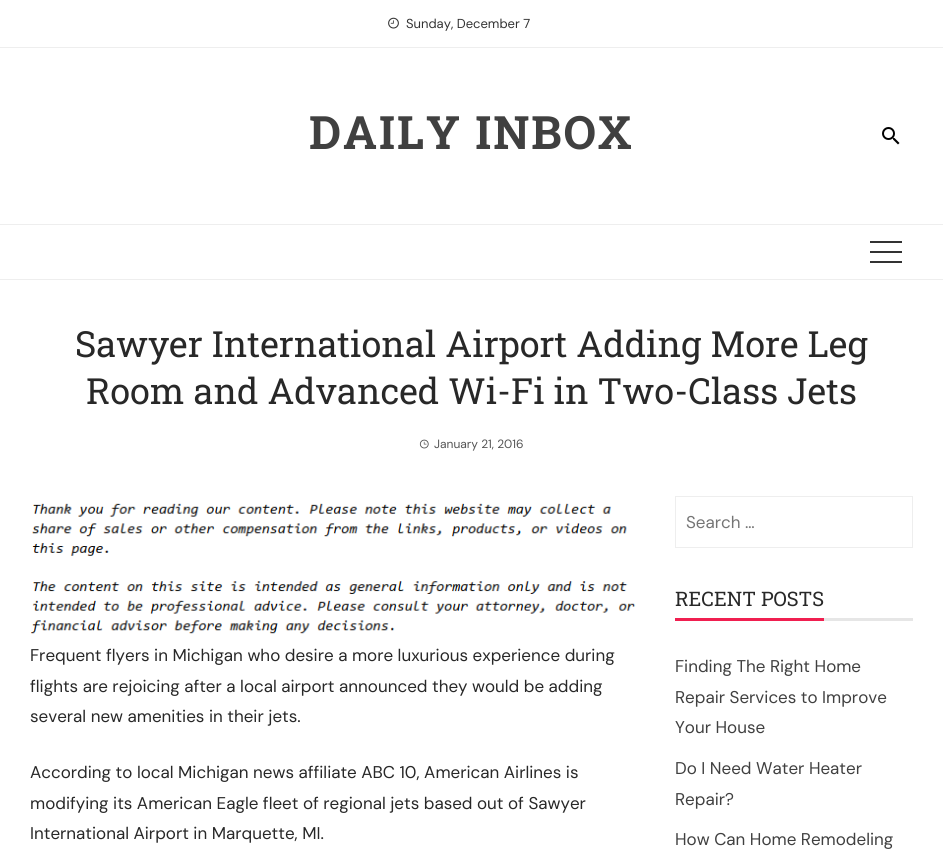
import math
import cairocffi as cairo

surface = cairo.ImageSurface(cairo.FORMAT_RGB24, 943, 864)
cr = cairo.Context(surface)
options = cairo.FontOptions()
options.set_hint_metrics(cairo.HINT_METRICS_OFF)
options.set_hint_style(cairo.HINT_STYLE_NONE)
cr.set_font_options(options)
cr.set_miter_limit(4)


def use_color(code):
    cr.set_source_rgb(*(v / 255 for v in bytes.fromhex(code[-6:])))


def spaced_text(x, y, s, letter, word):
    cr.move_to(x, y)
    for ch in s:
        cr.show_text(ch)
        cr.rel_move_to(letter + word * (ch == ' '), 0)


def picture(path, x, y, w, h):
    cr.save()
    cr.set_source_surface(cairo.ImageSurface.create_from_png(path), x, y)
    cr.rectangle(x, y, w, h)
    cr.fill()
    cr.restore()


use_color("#ffffff")
cr.paint()
use_color("#eeeeee")
cr.rectangle(0, 47, 943, 1)
cr.fill()
picture("img1.png", 388, 17, 11, 12)
cr.select_font_face("DM Sans")
cr.set_font_size(13)
use_color("#333333")
cr.move_to(406, 28)
cr.show_text("Sunday, December 7")
cr.select_font_face("Roboto Slab", cairo.FONT_SLANT_NORMAL, cairo.FONT_WEIGHT_BOLD)
cr.set_font_size(46)
use_color("#404040")
spaced_text(309, 149, "DAILY INBOX", 2, 0)
picture("img2.png", 882, 127, 18, 18)
use_color("#eeeeee")
cr.rectangle(0, 224, 943, 1)
cr.fill()
cr.rectangle(0, 279, 943, 1)
cr.fill()
use_color("#333333")
cr.rectangle(870, 241, 32, 2)
cr.fill()
cr.rectangle(870, 261, 32, 2)
cr.fill()
cr.rectangle(870, 251, 32, 2)
cr.fill()
cr.select_font_face("Roboto Slab")
cr.set_font_size(36)
use_color("#282828")
cr.move_to(75, 357)
cr.show_text("Sawyer International Airport Adding More Leg")
cr.move_to(86, 404)
cr.show_text("Room and Advanced Wi-Fi in Two-Class Jets")
picture("img3.png", 419, 439, 10, 10)
cr.select_font_face("DM Sans")
cr.set_font_size(12)
use_color("#535353")
cr.move_to(434, 448)
cr.show_text("January 21, 2016")
picture("img4.png", 30, 503, 606, 131)
cr.set_font_size(17)
use_color("#282828")
cr.move_to(30, 661)
cr.show_text("Frequent flyers in Michigan who desire a more luxurious experience during")
cr.move_to(30, 692)
cr.show_text("flights are rejoicing after a local airport announced they would be adding")
cr.move_to(30, 722)
cr.show_text("several new amenities in their jets.")
cr.move_to(30, 778)
cr.show_text("According to local Michigan news affiliate ABC 10, American Airlines is")
cr.move_to(30, 809)
cr.show_text("modifying its American Eagle fleet of regional jets based out of Sawyer")
cr.move_to(30, 839)
cr.show_text("International Airport in Marquette, MI.")
cr.rectangle(675.5, 496.5, 237, 51)
use_color("#eeeeee")
cr.set_line_width(1)
cr.stroke()
use_color("#757575")
cr.move_to(686, 528)
cr.show_text("Search …")
use_color("#e6e6e6")
cr.rectangle(824, 618, 89, 3)
cr.fill()
cr.select_font_face("Roboto Slab")
cr.set_font_size(20)
use_color("#282828")
cr.move_to(675, 606)
cr.show_text("RECENT POSTS")
use_color("#f01f50")
cr.rectangle(675, 618, 149, 3)
cr.fill()
cr.select_font_face("DM Sans")
cr.set_font_size(17)
use_color("#404040")
cr.move_to(675, 672)
cr.show_text("Finding The Right Home")
cr.move_to(675, 703)
cr.show_text("Repair Services to Improve")
cr.move_to(675, 733)
cr.show_text("Your House")
cr.move_to(675, 774)
cr.show_text("Do I Need Water Heater")
cr.move_to(675, 805)
cr.show_text("Repair?")
cr.move_to(675, 845)
cr.show_text("How Can Home Remodeling")
surface.write_to_png("result.png")
